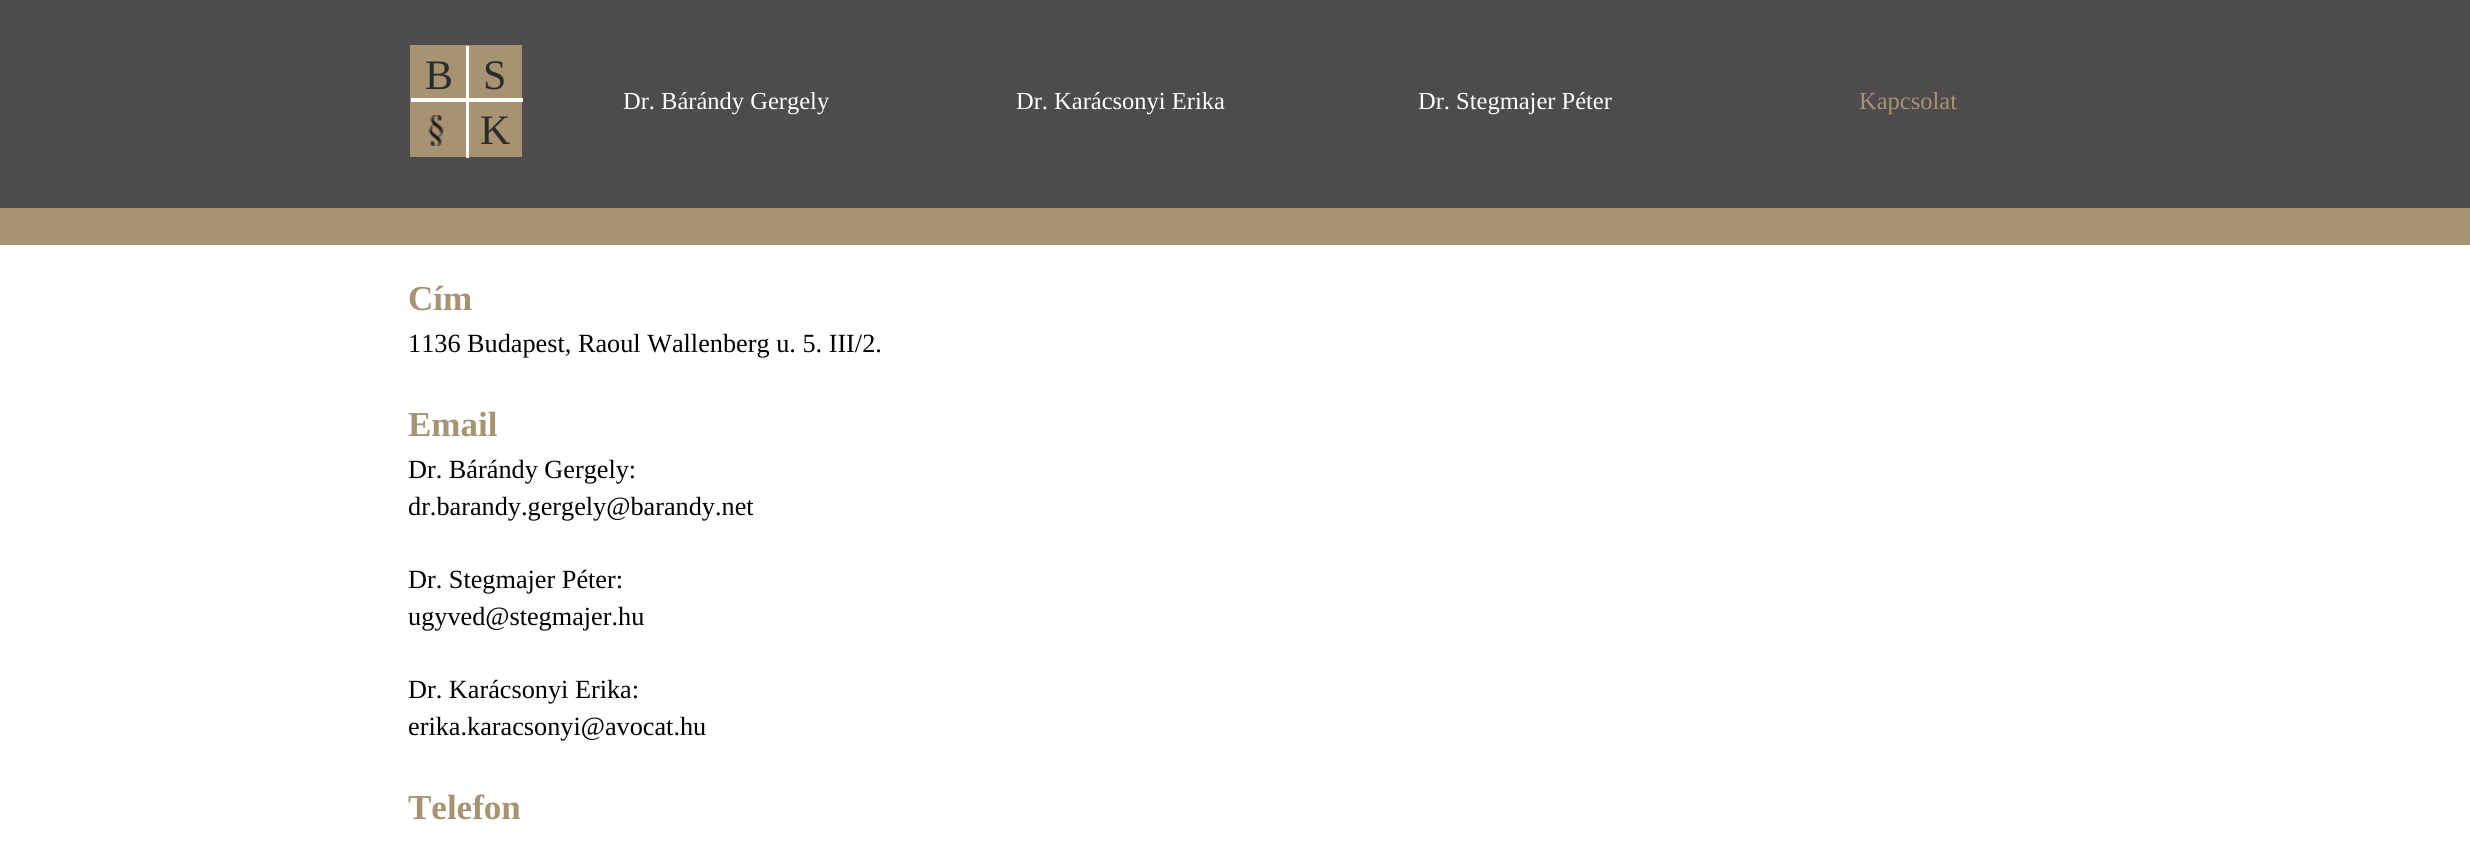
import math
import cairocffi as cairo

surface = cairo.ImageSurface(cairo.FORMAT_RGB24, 2470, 854)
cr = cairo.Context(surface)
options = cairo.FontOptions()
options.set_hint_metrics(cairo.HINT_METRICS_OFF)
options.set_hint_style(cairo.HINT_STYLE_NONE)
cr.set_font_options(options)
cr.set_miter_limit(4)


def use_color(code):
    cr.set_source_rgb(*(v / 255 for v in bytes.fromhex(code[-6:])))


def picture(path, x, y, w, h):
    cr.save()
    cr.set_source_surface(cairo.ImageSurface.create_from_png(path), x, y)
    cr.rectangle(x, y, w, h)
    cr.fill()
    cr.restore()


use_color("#ffffff")
cr.paint()
use_color("#4d4b4b")
cr.rectangle(0, 0, 2470, 208)
cr.fill()
use_color("#a69374")
cr.rectangle(410, 45, 112, 112)
cr.fill()
cr.select_font_face("Liberation Serif")
cr.set_font_size(42)
use_color("#2c2c2c")
cr.move_to(425, 89)
cr.show_text("B")
use_color("#ffffff")
cr.rectangle(411, 98, 112, 4)
cr.fill()
cr.rectangle(466, 46, 3, 112)
cr.fill()
use_color("#2c2c2c")
cr.move_to(483, 89)
cr.show_text("S")
cr.set_font_size(24.5)
use_color("#ffffff")
cr.move_to(623, 109)
cr.show_text("Dr. Bárándy Gergely")
cr.move_to(1016, 109)
cr.show_text("Dr. Karácsonyi Erika")
cr.move_to(1418, 109)
cr.show_text("Dr. Stegmajer Péter")
use_color("#a69374")
cr.move_to(1859, 109)
cr.show_text("Kapcsolat")
picture("img1.png", 428, 115, 16, 31)
cr.set_font_size(42)
use_color("#2c2c2c")
cr.move_to(480, 144)
cr.show_text("K")
use_color("#a69374")
cr.rectangle(0, 208, 2470, 37)
cr.fill()
cr.select_font_face("Liberation Serif", cairo.FONT_SLANT_NORMAL, cairo.FONT_WEIGHT_BOLD)
cr.set_font_size(35)
cr.move_to(408, 310)
cr.show_text("Cím")
cr.select_font_face("Liberation Serif")
cr.set_font_size(26.25)
use_color("#000000")
cr.move_to(408, 352)
cr.show_text("1136 Budapest, Raoul Wallenberg u. 5. III/2.")
cr.select_font_face("Liberation Serif", cairo.FONT_SLANT_NORMAL, cairo.FONT_WEIGHT_BOLD)
cr.set_font_size(35)
use_color("#a69374")
cr.move_to(408, 436)
cr.show_text("Email")
cr.select_font_face("Liberation Serif")
cr.set_font_size(26.25)
use_color("#000000")
cr.move_to(408, 478)
cr.show_text("Dr. Bárándy Gergely:")
cr.move_to(408, 515)
cr.show_text("dr.barandy.gergely@barandy.net")
cr.move_to(408, 588)
cr.show_text("Dr. Stegmajer Péter:")
cr.move_to(408, 625)
cr.show_text("ugyved@stegmajer.hu")
cr.move_to(408, 698)
cr.show_text("Dr. Karácsonyi Erika:")
cr.move_to(408, 735)
cr.show_text("erika.karacsonyi@avocat.hu")
cr.select_font_face("Liberation Serif", cairo.FONT_SLANT_NORMAL, cairo.FONT_WEIGHT_BOLD)
cr.set_font_size(35)
use_color("#a69374")
cr.move_to(408, 819)
cr.show_text("Telefon")
surface.write_to_png("result.png")
